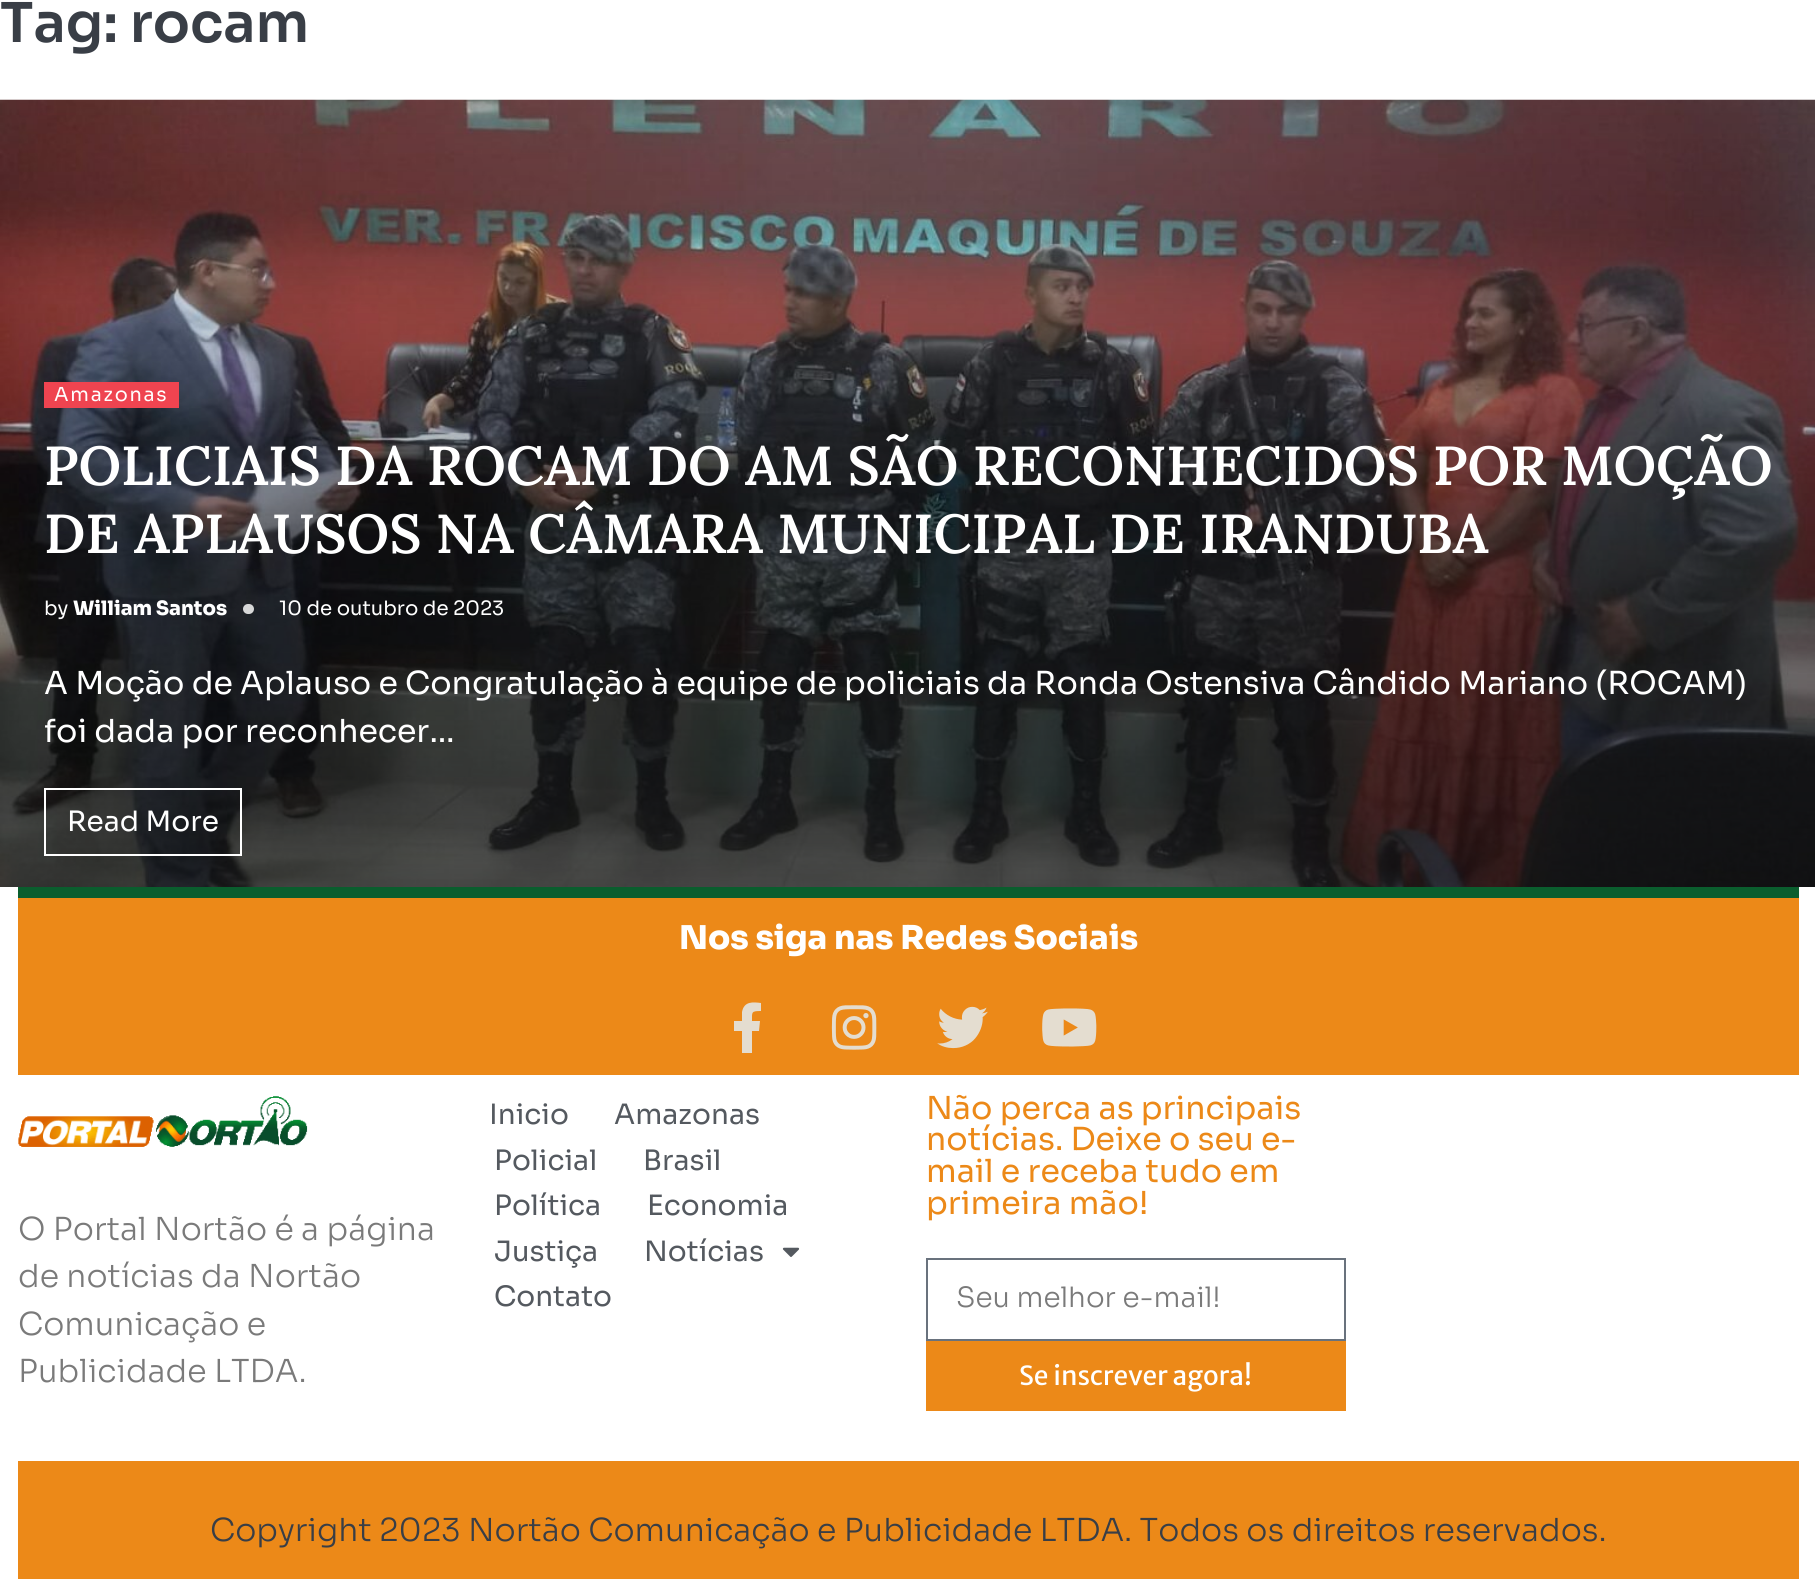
import math
import cairocffi as cairo

surface = cairo.ImageSurface(cairo.FORMAT_RGB24, 1815, 1579)
cr = cairo.Context(surface)
options = cairo.FontOptions()
options.set_hint_metrics(cairo.HINT_METRICS_OFF)
options.set_hint_style(cairo.HINT_STYLE_NONE)
cr.set_font_options(options)
cr.set_miter_limit(4)


def use_color(code):
    cr.set_source_rgb(*(v / 255 for v in bytes.fromhex(code[-6:])))


def spaced_text(x, y, s, letter, word):
    cr.move_to(x, y)
    for ch in s:
        cr.show_text(ch)
        cr.rel_move_to(letter + word * (ch == ' '), 0)


def round_rect(x, y, w, h, r):
    cr.new_sub_path()
    for i, (u, v) in enumerate([(x + w - r, y + h - r), (x + r, y + h - r), (x + r, y + r), (x + w - r, y + r)]):
        cr.arc(u, v, r, i * math.pi / 2, (i + 1) * math.pi / 2)
    cr.close_path()


def picture(path, x, y, w, h):
    cr.save()
    cr.set_source_surface(cairo.ImageSurface.create_from_png(path), x, y)
    cr.rectangle(x, y, w, h)
    cr.fill()
    cr.restore()


use_color("#ffffff")
cr.paint()
cr.select_font_face("Sora SemiBold")
cr.set_font_size(54.85)
use_color("#393e46")
cr.move_to(0, 42)
cr.show_text("Tag: rocam")
picture("img1.png", 0, 99, 1815, 788)
use_color("#ef4450")
cr.rectangle(44, 382, 135, 26)
cr.fill()
cr.select_font_face("Sora")
cr.set_font_size(19.25)
use_color("#ffffff")
spaced_text(54, 401, "Amazonas", 1.75, 0)
cr.select_font_face("Lora SemiBold")
cr.set_font_size(54.85)
cr.move_to(44, 485)
cr.show_text("POLICIAIS DA ROCAM DO AM SÃO RECONHECIDOS POR MOÇÃO")
cr.move_to(44, 553)
cr.show_text("DE APLAUSOS NA CÂMARA MUNICIPAL DE IRANDUBA")
cr.select_font_face("Sora")
cr.set_font_size(19.75)
cr.move_to(44, 615)
cr.show_text("by")
cr.select_font_face("Sora ExtraBold")
cr.move_to(73, 615)
cr.show_text("William Santos")
use_color("#d7d7d7")
round_rect(243, 604, 11, 10, 5)
cr.fill()
cr.select_font_face("Sora")
use_color("#ffffff")
cr.move_to(279, 615)
cr.show_text("10 de outubro de 2023")
cr.set_font_size(31.65)
cr.move_to(44, 694)
cr.show_text("A Moção de Aplauso e Congratulação à equipe de policiais da Ronda Ostensiva Cândido Mariano (ROCAM)")
cr.move_to(44, 742)
cr.show_text("foi dada por reconhecer…")
cr.rectangle(45, 789, 196, 66)
cr.stroke()
cr.set_font_size(28)
cr.move_to(67, 831)
cr.show_text("Read More")
use_color("#ec8918")
cr.rectangle(18, 898, 1781, 177)
cr.fill()
use_color("#0a5e2e")
cr.rectangle(18, 887, 1781, 11)
cr.fill()
cr.select_font_face("Sora ExtraBold")
cr.set_font_size(32.75)
use_color("#ffffff")
cr.move_to(679, 949)
cr.show_text("Nos siga nas Redes Sociais")
use_color("#e4ddd0")
cr.new_path()
cr.move_to(759, 1031)
cr.line_to(752, 1031)
cr.line_to(752, 1053)
cr.line_to(742, 1053)
cr.line_to(742, 1031)
cr.line_to(734, 1031)
cr.line_to(734, 1021)
cr.line_to(742, 1021)
cr.line_to(742, 1012)
cr.curve_to(744, 1001, 753, 1002, 761, 1003)
cr.line_to(761, 1011)
cr.curve_to(751, 1011, 752, 1012, 752, 1021)
cr.line_to(760, 1021)
cr.close_path()
cr.fill()
picture("img2.png", 831, 1005, 46, 45)
picture("img3.png", 937, 1006, 51, 43)
picture("img4.png", 1042, 1008, 55, 39)
picture("img5.png", 18, 1096, 290, 51)
cr.select_font_face("Sora Light")
cr.set_font_size(31.65)
use_color("#7a7a7a")
cr.move_to(18, 1240)
cr.show_text("O Portal Nortão é a página")
cr.move_to(18, 1287)
cr.show_text("de notícias da Nortão")
cr.move_to(18, 1335)
cr.show_text("Comunicação e")
cr.move_to(18, 1382)
cr.show_text("Publicidade LTDA.")
cr.select_font_face("Sora")
cr.set_font_size(28)
use_color("#54595f")
cr.move_to(489, 1124)
cr.show_text("Inicio")
cr.move_to(614, 1124)
cr.show_text("Amazonas")
cr.move_to(494, 1170)
cr.show_text("Policial")
cr.move_to(643, 1170)
cr.show_text("Brasil")
cr.move_to(494, 1215)
cr.show_text("Política")
cr.move_to(647, 1215)
cr.show_text("Economia")
cr.move_to(494, 1261)
cr.show_text("Justiça")
cr.move_to(644, 1261)
cr.show_text("Notícias")
picture("img6.png", 782, 1247, 18, 10)
cr.move_to(494, 1306)
cr.show_text("Contato")
cr.set_font_size(31.65)
use_color("#ec8918")
cr.move_to(926, 1119)
cr.show_text("Não perca as principais")
cr.move_to(926, 1150)
cr.show_text("notícias. Deixe o seu e-")
cr.move_to(926, 1182)
cr.show_text("mail e receba tudo em")
cr.move_to(926, 1214)
cr.show_text("primeira mão!")
cr.rectangle(927, 1259, 418, 81)
use_color("#69727d")
cr.stroke()
cr.select_font_face("Sora Light")
cr.set_font_size(28)
use_color("#7a7a7a")
cr.move_to(956, 1307)
cr.show_text("Seu melhor e-mail!")
use_color("#ec8918")
cr.rectangle(926, 1341, 420, 70)
cr.fill()
cr.select_font_face("Merriweather Sans")
cr.set_font_size(26.25)
use_color("#ffffff")
cr.move_to(1019, 1385)
cr.show_text("Se inscrever agora!")
use_color("#ec8918")
cr.rectangle(18, 1461, 1781, 118)
cr.fill()
cr.select_font_face("Sora Light")
cr.set_font_size(31.65)
use_color("#393e46")
cr.move_to(210, 1541)
cr.show_text("Copyright 2023 Nortão Comunicação e Publicidade LTDA. Todos os direitos reservados.")
surface.write_to_png("result.png")
